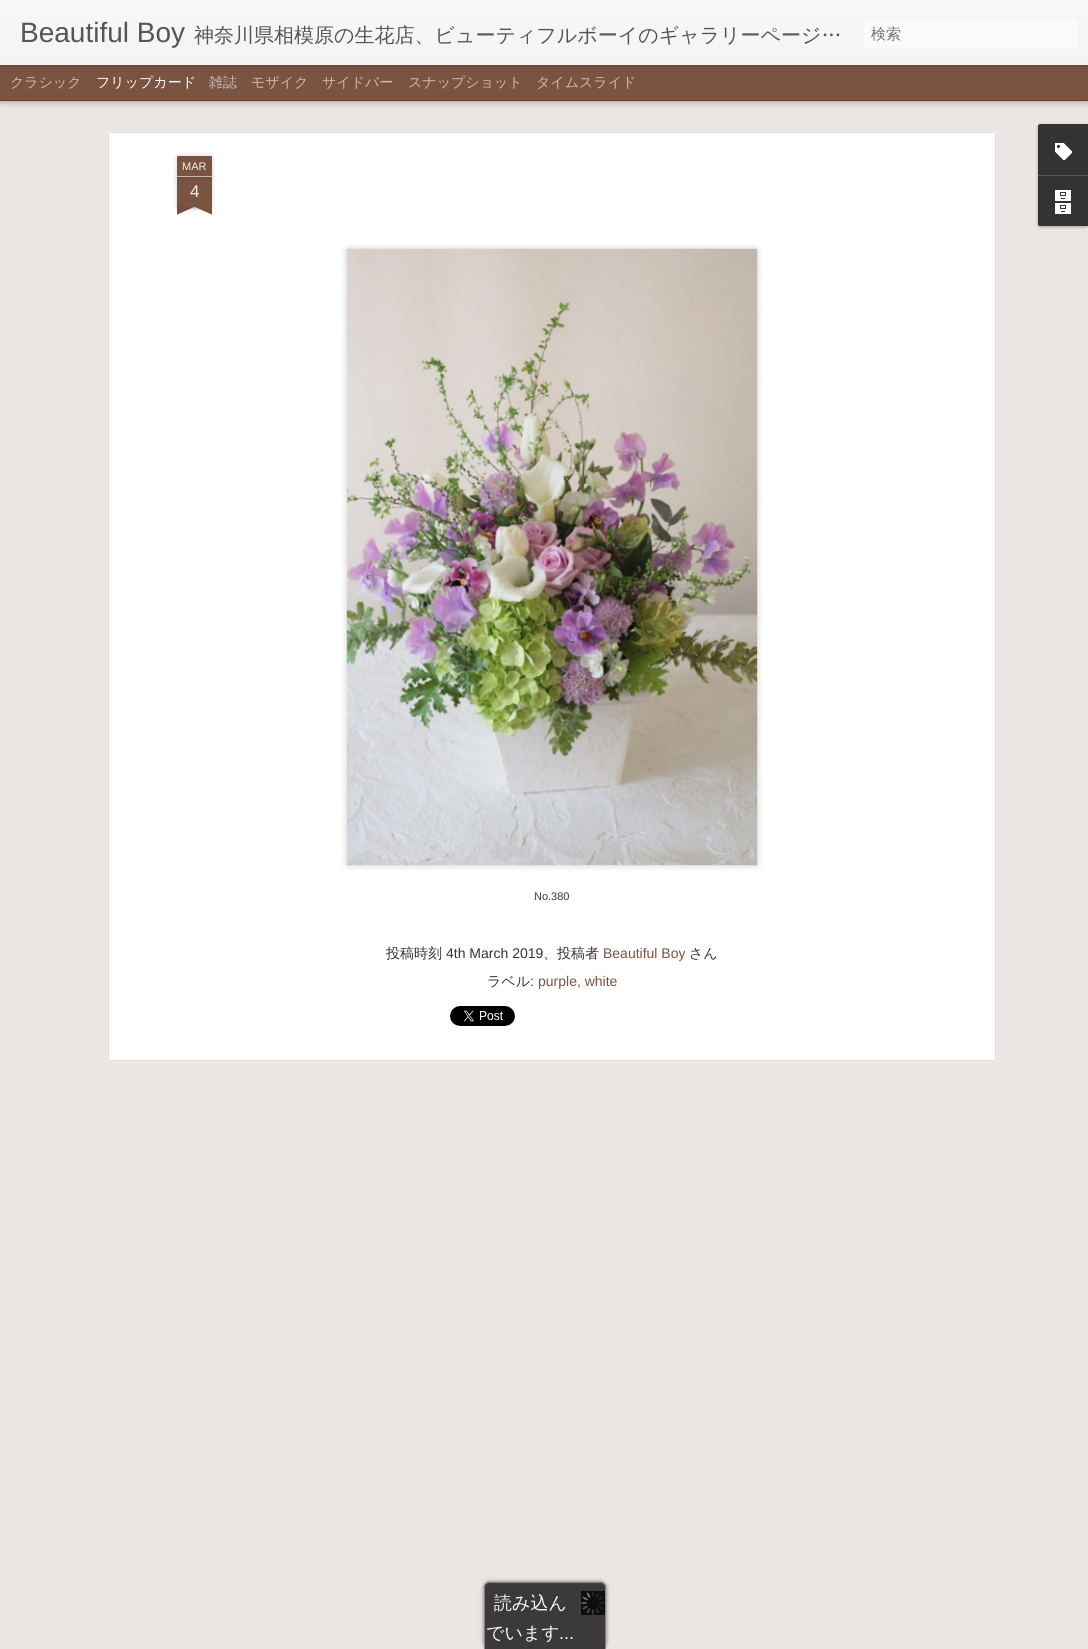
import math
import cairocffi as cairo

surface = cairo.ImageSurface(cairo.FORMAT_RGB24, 1088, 1649)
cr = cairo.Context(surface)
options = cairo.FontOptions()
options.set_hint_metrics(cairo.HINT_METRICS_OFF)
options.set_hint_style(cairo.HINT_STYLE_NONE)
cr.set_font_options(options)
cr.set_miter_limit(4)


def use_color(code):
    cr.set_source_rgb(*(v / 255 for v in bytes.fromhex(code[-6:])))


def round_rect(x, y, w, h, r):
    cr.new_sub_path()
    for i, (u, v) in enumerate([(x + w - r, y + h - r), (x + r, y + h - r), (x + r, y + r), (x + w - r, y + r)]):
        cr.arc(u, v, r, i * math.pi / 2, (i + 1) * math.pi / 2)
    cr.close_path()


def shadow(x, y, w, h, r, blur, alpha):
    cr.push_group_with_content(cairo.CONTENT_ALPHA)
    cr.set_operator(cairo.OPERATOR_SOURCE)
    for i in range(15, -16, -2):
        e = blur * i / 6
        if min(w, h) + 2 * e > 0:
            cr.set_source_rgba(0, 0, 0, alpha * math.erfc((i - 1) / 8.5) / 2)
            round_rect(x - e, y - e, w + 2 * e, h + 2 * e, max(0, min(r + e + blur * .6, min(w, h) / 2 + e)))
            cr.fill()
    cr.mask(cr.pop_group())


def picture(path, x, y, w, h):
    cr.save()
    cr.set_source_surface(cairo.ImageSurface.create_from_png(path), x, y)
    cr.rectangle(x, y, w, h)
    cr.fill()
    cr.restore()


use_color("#7b5341")
cr.paint()
use_color("#ebe5e3")
cr.rectangle(0, 101, 1088, 1548)
cr.fill()
use_color("#000000")
shadow(0, 65, 1088, 35, 0, 4, 0.5)
use_color("#7b5341")
cr.rectangle(0, 65, 1088, 35)
cr.fill()
use_color("#000000")
shadow(0, 0, 1088, 65, 0, 2.5, 0.3)
gradient = cairo.LinearGradient(0, 0, 0, 65)
gradient.add_color_stop_rgba(0, 0.969, 0.969, 0.969, 1)
gradient.add_color_stop_rgba(1, 0.957, 0.957, 0.957, 1)
cr.set_source(gradient)
cr.rectangle(0, 0, 1088, 65)
cr.fill()
cr.select_font_face("Liberation Sans")
cr.set_font_size(28)
use_color("#555555")
cr.move_to(20, 42)
cr.show_text("Beautiful Boy")
cr.select_font_face("WenQuanYi Zen Hei Medium")
cr.set_font_size(20)
cr.move_to(194, 42)
cr.show_text("神奈川県相模原の生花店、ビューティフルボーイのギャラリーページ…")
use_color("#fafafa")
round_rect(864, 18, 214, 30, 3)
cr.fill()
cr.set_font_size(15)
use_color("#757575")
cr.move_to(871, 39)
cr.show_text("検索")
cr.set_font_size(14)
use_color("#cabab3")
cr.move_to(10, 87)
cr.show_text("クラシック")
use_color("#ffffff")
cr.move_to(96, 87)
cr.show_text("フリップカード")
use_color("#cabab3")
cr.move_to(209, 87)
cr.show_text("雑誌")
cr.move_to(251, 87)
cr.show_text("モザイク")
cr.move_to(322, 87)
cr.show_text("サイドバー")
cr.move_to(408, 87)
cr.show_text("スナップショット")
cr.move_to(536, 87)
cr.show_text("タイムスライド")
use_color("#ffffff")
cr.rectangle(107, 131, 890, 931)
cr.fill()
picture("img1.png", 107, 131, 890, 931)
use_color("#000000")
shadow(177, 177, 35, 30, 0, 2.5, 0.2)
use_color("#7b5341")
cr.rectangle(177, 177, 35, 30)
cr.fill()
use_color("#000000")
shadow(177, 156, 35, 21, 1, 2.5, 0.2)
use_color("#7b5341")
cr.new_path()
cr.move_to(178, 156)
cr.line_to(211, 156)
cr.curve_to(211.5, 156, 212, 156.5, 212, 157)
cr.line_to(212, 177)
cr.line_to(177, 177)
cr.line_to(177, 157)
cr.curve_to(177, 156.5, 177.5, 156, 178, 156)
cr.close_path()
cr.fill()
use_color("#cabab3")
cr.rectangle(177, 176, 35, 1)
cr.fill()
cr.select_font_face("Liberation Sans")
cr.set_font_size(11)
use_color("#eeeeee")
cr.move_to(182, 170)
cr.show_text("MAR")
cr.set_font_size(17)
cr.move_to(190, 197)
cr.show_text("4")
cr.save()
cr.rectangle(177, 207, 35, 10)
cr.clip()
use_color("#000000")
shadow(168, 197, 50, 10, 0, 2.5, 0.2)
cr.restore()
cr.save()
cr.rectangle(177, 207, 35, 10)
cr.clip()
use_color("#7b5341")
cr.new_path()
cr.move_to(168, 208)
cr.line_to(214, 187)
cr.line_to(218, 196)
cr.line_to(172, 217)
cr.close_path()
cr.fill()
cr.restore()
cr.save()
cr.rectangle(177, 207, 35, 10)
cr.clip()
use_color("#000000")
shadow(171, 197, 50, 10, 0, 2.5, 0.2)
cr.restore()
cr.save()
cr.rectangle(177, 207, 35, 10)
cr.clip()
use_color("#7b5341")
cr.new_path()
cr.move_to(175, 187)
cr.line_to(221, 208)
cr.line_to(217, 217)
cr.line_to(171, 196)
cr.close_path()
cr.fill()
cr.restore()
picture("img2.png", 342, 244, 420, 626)
picture("img3.png", 346, 248, 412, 618)
cr.set_font_size(11)
use_color("#333333")
cr.move_to(534, 900)
cr.show_text("No.380")
cr.select_font_face("WenQuanYi Zen Hei Medium")
cr.set_font_size(14)
cr.move_to(386, 958)
cr.show_text("投稿時刻")
cr.select_font_face("Liberation Sans")
cr.move_to(446, 958)
cr.show_text("4th March 2019")
cr.select_font_face("WenQuanYi Zen Hei Medium")
cr.move_to(543, 958)
cr.show_text("、投稿者")
cr.select_font_face("Liberation Sans")
use_color("#7b5341")
cr.move_to(603, 958)
cr.show_text("Beautiful Boy")
cr.select_font_face("WenQuanYi Zen Hei Medium")
use_color("#333333")
cr.move_to(689, 958)
cr.show_text("さん")
cr.move_to(487, 986)
cr.show_text("ラベル")
cr.select_font_face("Liberation Sans")
cr.move_to(530, 986)
cr.show_text(":")
use_color("#7b5341")
cr.move_to(538, 986)
cr.show_text("purple, white")
picture("img4.png", 450, 1006, 65, 20)
use_color("#000000")
shadow(1038, 125, 50, 102, 2, 1.5, 0.3)
use_color("#333333")
cr.new_path()
cr.move_to(1040, 124)
cr.line_to(1088, 124)
cr.line_to(1088, 175)
cr.line_to(1038, 175)
cr.line_to(1038, 126)
cr.curve_to(1038, 125, 1039, 124, 1040, 124)
cr.close_path()
cr.fill()
picture("img5.png", 1055, 143, 17, 17)
cr.new_path()
cr.move_to(1038, 175)
cr.line_to(1088, 175)
cr.line_to(1088, 226)
cr.line_to(1040, 226)
cr.curve_to(1039, 226, 1038, 225, 1038, 224)
cr.close_path()
cr.fill()
use_color("#585858")
cr.rectangle(1038, 175, 50, 1)
cr.fill()
picture("img6.png", 1055, 190, 16, 24)
use_color("#61605f")
shadow(484, 1582, 122, 67, 6, 2, 1)
use_color("#3b3939")
cr.new_path()
cr.move_to(490, 1582)
cr.line_to(600, 1582)
cr.curve_to(603.5, 1582, 606, 1584.5, 606, 1588)
cr.line_to(606, 1649)
cr.line_to(484, 1649)
cr.line_to(484, 1588)
cr.curve_to(484, 1584.5, 486.5, 1582, 490, 1582)
cr.close_path()
cr.fill()
use_color("#878685")
cr.set_fill_rule(cairo.FILL_RULE_EVEN_ODD)
cr.new_path()
cr.move_to(490, 1582)
cr.line_to(600, 1582)
cr.curve_to(603, 1582, 606, 1585, 606, 1588)
cr.line_to(606, 1649)
cr.line_to(484, 1649)
cr.line_to(484, 1588)
cr.curve_to(484, 1585, 487, 1582, 490, 1582)
cr.close_path()
cr.move_to(490, 1583)
cr.line_to(600, 1583)
cr.curve_to(603, 1583, 605, 1585, 605, 1588)
cr.line_to(605, 1649)
cr.line_to(485, 1649)
cr.line_to(485, 1588)
cr.curve_to(485, 1585, 487, 1583, 490, 1583)
cr.close_path()
cr.fill()
picture("img7.png", 581, 1591, 24, 24)
cr.select_font_face("WenQuanYi Zen Hei Medium")
cr.set_font_size(18)
use_color("#faf9f8")
cr.move_to(494, 1609)
cr.show_text("読み込ん")
cr.move_to(486, 1639)
cr.show_text("でいます")
cr.select_font_face("Liberation Sans")
cr.move_to(559, 1639)
cr.show_text("...")
surface.write_to_png("result.png")
